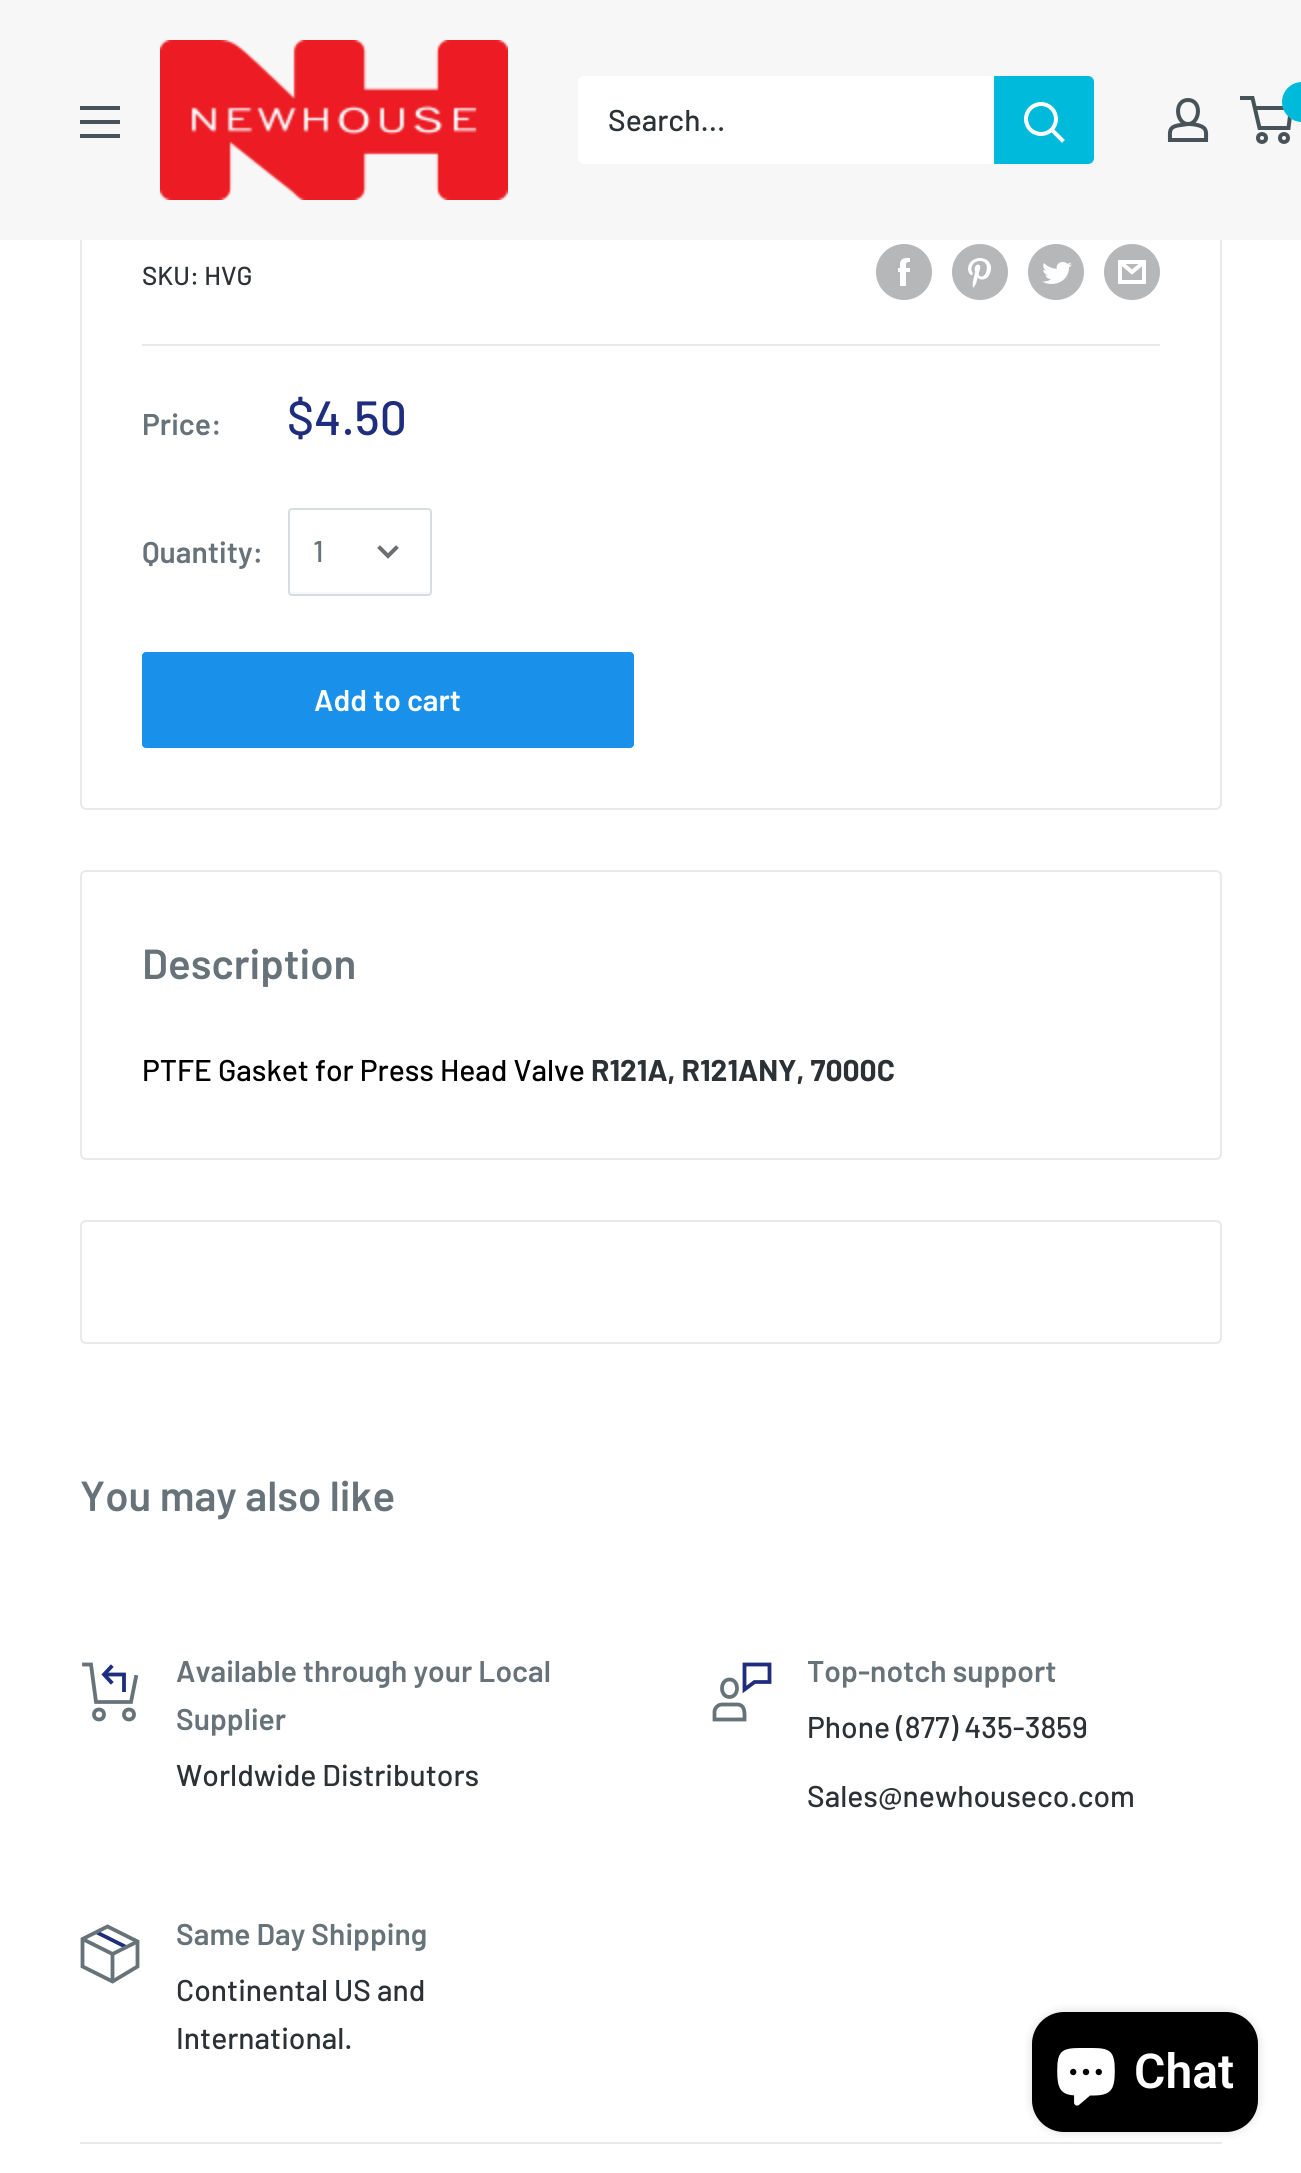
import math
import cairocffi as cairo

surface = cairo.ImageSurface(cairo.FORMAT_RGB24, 1301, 2173)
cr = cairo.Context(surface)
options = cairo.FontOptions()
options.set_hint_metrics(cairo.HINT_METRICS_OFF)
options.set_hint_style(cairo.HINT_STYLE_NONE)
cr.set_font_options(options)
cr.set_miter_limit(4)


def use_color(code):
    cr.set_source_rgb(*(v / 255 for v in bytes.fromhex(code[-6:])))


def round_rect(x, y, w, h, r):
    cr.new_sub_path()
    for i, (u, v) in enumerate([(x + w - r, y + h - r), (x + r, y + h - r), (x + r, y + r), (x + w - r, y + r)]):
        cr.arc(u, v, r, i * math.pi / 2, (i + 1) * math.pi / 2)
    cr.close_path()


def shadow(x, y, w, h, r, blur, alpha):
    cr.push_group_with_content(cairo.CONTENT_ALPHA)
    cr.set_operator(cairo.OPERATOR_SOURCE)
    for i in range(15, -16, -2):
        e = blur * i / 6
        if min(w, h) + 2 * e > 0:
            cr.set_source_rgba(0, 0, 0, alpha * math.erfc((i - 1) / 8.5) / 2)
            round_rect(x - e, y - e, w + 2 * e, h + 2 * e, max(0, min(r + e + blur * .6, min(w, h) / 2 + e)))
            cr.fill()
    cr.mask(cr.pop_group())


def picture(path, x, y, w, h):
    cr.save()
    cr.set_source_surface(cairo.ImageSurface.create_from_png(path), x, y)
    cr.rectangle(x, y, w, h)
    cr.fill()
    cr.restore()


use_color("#ffffff")
cr.paint()
use_color("#e7e9eb")
cr.set_fill_rule(cairo.FILL_RULE_EVEN_ODD)
cr.new_path()
cr.move_to(86, 142)
cr.line_to(1216, 142)
cr.curve_to(1219, 142, 1222, 145, 1222, 148)
cr.line_to(1222, 804)
cr.curve_to(1222, 807, 1219, 810, 1216, 810)
cr.line_to(86, 810)
cr.curve_to(83, 810, 80, 807, 80, 804)
cr.line_to(80, 148)
cr.curve_to(80, 145, 83, 142, 86, 142)
cr.close_path()
cr.move_to(86, 142)
cr.line_to(1216, 142)
cr.curve_to(1218, 142, 1220, 145, 1220, 148)
cr.line_to(1220, 804)
cr.curve_to(1220, 806, 1218, 808, 1216, 808)
cr.line_to(86, 808)
cr.curve_to(84, 808, 82, 806, 82, 804)
cr.line_to(82, 148)
cr.curve_to(82, 145, 84, 142, 86, 142)
cr.close_path()
cr.fill()
use_color("#f7f7f7")
cr.rectangle(0, 0, 1301, 240)
cr.fill()
use_color("#485259")
cr.new_path()
cr.move_to(80, 134)
cr.line_to(120, 134)
cr.line_to(120, 138)
cr.line_to(80, 138)
cr.close_path()
cr.move_to(80, 106)
cr.line_to(120, 106)
cr.line_to(120, 110)
cr.line_to(80, 110)
cr.close_path()
cr.move_to(80, 120)
cr.line_to(120, 120)
cr.line_to(120, 124)
cr.line_to(80, 124)
cr.close_path()
cr.fill()
picture("img1.png", 160, 40, 348, 160)
use_color("#ffffff")
round_rect(578, 76, 516, 88, 6)
cr.fill()
cr.select_font_face("Barlow Medium")
cr.set_font_size(30)
use_color("#2b3135")
cr.move_to(608, 131)
cr.show_text("Search...")
use_color("#00badb")
cr.new_path()
cr.move_to(994, 76)
cr.line_to(1088, 76)
cr.curve_to(1091.5, 76, 1094, 78.5, 1094, 82)
cr.line_to(1094, 158)
cr.curve_to(1094, 161.5, 1091.5, 164, 1088, 164)
cr.line_to(994, 164)
cr.close_path()
cr.fill()
cr.new_path()
cr.move_to(1062, 140)
cr.line_to(1052, 130)
use_color("#ffffff")
cr.set_line_width(4)
cr.set_line_cap(cairo.LINE_CAP_SQUARE)
cr.stroke()
cr.arc(1041, 119, 15, 0, 2 * math.pi)
cr.set_line_cap(cairo.LINE_CAP_BUTT)
cr.stroke()
cr.new_path()
cr.move_to(1188, 124)
cr.curve_to(1192, 124, 1195.5, 124.5, 1199, 125.5)
cr.curve_to(1207.5, 128, 1206, 132.5, 1206, 140)
cr.line_to(1170, 140)
cr.curve_to(1170, 132, 1168.5, 127.5, 1177.5, 125.5)
cr.close_path()
cr.move_to(1188, 124)
cr.curve_to(1176, 124, 1173.5, 100, 1188, 100)
cr.curve_to(1202.5, 100, 1200, 124, 1188, 124)
cr.close_path()
use_color("#485259")
cr.stroke()
cr.arc(1262, 138, 4, 0, 2 * math.pi)
cr.stroke()
cr.arc(1284, 138, 4, 0, 2 * math.pi)
cr.stroke()
cr.new_path()
cr.move_to(1254.5, 108)
cr.line_to(1291, 108)
cr.line_to(1288.5, 128)
cr.line_to(1259.5, 128)
cr.line_to(1252.5, 98)
cr.line_to(1240, 98)
cr.stroke()
use_color("#00badb")
round_rect(1282, 82, 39, 40, 20)
cr.fill()
cr.set_font_size(26)
use_color("#2b3135")
cr.move_to(142, 285)
cr.show_text("SKU: HVG")
picture("img2.png", 876, 244, 56, 56)
picture("img3.png", 952, 244, 56, 56)
picture("img4.png", 1028, 244, 56, 56)
picture("img5.png", 1104, 244, 56, 56)
use_color("#e7e9eb")
cr.rectangle(142, 344, 1018, 2)
cr.fill()
cr.select_font_face("Barlow SemiBold")
cr.set_font_size(30)
use_color("#677279")
cr.move_to(142, 435)
cr.show_text("Price:")
cr.select_font_face("Barlow Medium")
cr.set_font_size(48)
use_color("#1e2d7d")
cr.move_to(287, 435)
cr.show_text("$4.50")
cr.select_font_face("Barlow SemiBold")
cr.set_font_size(30)
use_color("#677279")
cr.move_to(142, 563)
cr.show_text("Quantity:")
use_color("#f8f8f9")
cr.set_fill_rule(cairo.FILL_RULE_WINDING)
cr.new_path()
cr.move_to(290, 590)
cr.line_to(290, 592)
cr.curve_to(290, 593, 291, 594, 292, 594)
cr.line_to(428, 594)
cr.curve_to(429, 594, 430, 593, 430, 592)
cr.line_to(430, 590)
cr.curve_to(430, 591, 429, 592, 428, 592)
cr.line_to(292, 592)
cr.curve_to(291, 592, 290, 591, 290, 590)
cr.close_path()
cr.fill()
round_rect(289, 509, 142, 86, 3)
use_color("#d9dcdf")
cr.set_line_width(2)
cr.stroke()
cr.select_font_face("Barlow Medium")
use_color("#677279")
cr.move_to(313, 562)
cr.show_text("1")
cr.new_path()
cr.move_to(396, 548)
cr.line_to(388, 556)
cr.line_to(380, 548)
use_color("#6b6f72")
cr.set_line_width(4)
cr.set_line_cap(cairo.LINE_CAP_SQUARE)
cr.stroke()
use_color("#1990e9")
round_rect(142, 652, 492, 96, 4)
cr.fill()
cr.select_font_face("Barlow SemiBold")
use_color("#ffffff")
cr.move_to(314, 711)
cr.show_text("Add to cart")
round_rect(81, 871, 1140, 288, 5)
use_color("#e7e9eb")
cr.set_line_width(2)
cr.set_line_cap(cairo.LINE_CAP_BUTT)
cr.stroke()
cr.set_font_size(42)
use_color("#677279")
cr.move_to(142, 979)
cr.show_text("Description")
cr.select_font_face("Barlow Medium")
cr.set_font_size(30)
use_color("#000000")
cr.move_to(142, 1081)
cr.show_text("PTFE Gasket for Press Head Valve")
cr.select_font_face("Barlow", cairo.FONT_SLANT_NORMAL, cairo.FONT_WEIGHT_BOLD)
use_color("#2b3135")
cr.move_to(591, 1081)
cr.show_text("R121A, R121ANY, 7000C")
round_rect(81, 1221, 1140, 122, 5)
use_color("#e7e9eb")
cr.stroke()
cr.select_font_face("Barlow SemiBold")
cr.set_font_size(42)
use_color("#677279")
cr.move_to(80, 1511)
cr.show_text("You may also like")
cr.new_path()
cr.move_to(104, 1674.5)
cr.line_to(124, 1674.5)
cr.line_to(124, 1692)
use_color("#1e2d7d")
cr.set_line_width(3.8)
cr.stroke()
cr.new_path()
cr.move_to(111, 1682)
cr.line_to(104, 1674.5)
cr.line_to(111, 1667)
cr.set_line_cap(cairo.LINE_CAP_SQUARE)
cr.stroke()
cr.new_path()
cr.move_to(136, 1677)
cr.line_to(131, 1702)
cr.line_to(96, 1702)
cr.line_to(91, 1664.5)
cr.line_to(84, 1664.5)
use_color("#677279")
cr.stroke()
cr.arc(99, 1714.5, 5, 0, 2 * math.pi)
cr.set_line_cap(cairo.LINE_CAP_BUTT)
cr.stroke()
cr.arc(129, 1714.5, 5, 0, 2 * math.pi)
cr.stroke()
cr.set_font_size(30)
cr.move_to(176, 1682)
cr.show_text("Available through your Local")
cr.move_to(176, 1730)
cr.show_text("Supplier")
cr.select_font_face("Barlow Medium")
use_color("#2b3135")
cr.move_to(176, 1786)
cr.show_text("Worldwide Distributors")
cr.new_path()
cr.move_to(737, 1704.5)
cr.line_to(722, 1704.5)
cr.curve_to(718, 1704.5, 714.5, 1708, 714.5, 1712)
cr.line_to(714.5, 1719.5)
cr.line_to(744.5, 1719.5)
cr.curve_to(744.5, 1713.5, 745.5, 1704.5, 737, 1704.5)
cr.close_path()
cr.move_to(729.5, 1697)
cr.curve_to(719.5, 1697, 719.5, 1679.5, 729.5, 1679.5)
cr.curve_to(739.5, 1679.5, 739.5, 1697, 729.5, 1697)
cr.close_path()
use_color("#677279")
cr.set_line_cap(cairo.LINE_CAP_SQUARE)
cr.stroke()
cr.new_path()
cr.move_to(744.5, 1664.5)
cr.line_to(744.5, 1689.5)
cr.line_to(754.5, 1682)
cr.line_to(769.5, 1682)
cr.line_to(769.5, 1664.5)
cr.close_path()
use_color("#1e2d7d")
cr.stroke()
cr.select_font_face("Barlow SemiBold")
use_color("#677279")
cr.move_to(807, 1682)
cr.show_text("Top-notch support")
cr.select_font_face("Barlow Medium")
use_color("#2b3135")
cr.move_to(807, 1738)
cr.show_text("Phone (877) 435-3859")
cr.move_to(807, 1807)
cr.show_text("Sales@newhouseco.com")
cr.new_path()
cr.move_to(96, 1932)
cr.line_to(126, 1947)
use_color("#1e2d7d")
cr.set_line_cap(cairo.LINE_CAP_BUTT)
cr.stroke()
cr.new_path()
cr.move_to(137.5, 1941.5)
cr.line_to(112.5, 1954)
cr.line_to(82.5, 1939)
cr.move_to(112.5, 1954)
cr.line_to(112.5, 1981.5)
use_color("#677279")
cr.stroke()
cr.new_path()
cr.move_to(137.5, 1941.5)
cr.line_to(137.5, 1966.5)
cr.line_to(112.5, 1981.5)
cr.line_to(82.5, 1966.5)
cr.line_to(82.5, 1939)
cr.line_to(107.5, 1926.5)
cr.close_path()
cr.set_line_cap(cairo.LINE_CAP_SQUARE)
cr.stroke()
cr.select_font_face("Barlow SemiBold")
cr.move_to(176, 1945)
cr.show_text("Same Day Shipping")
cr.select_font_face("Barlow Medium")
use_color("#2b3135")
cr.move_to(176, 2001)
cr.show_text("Continental US and")
cr.move_to(176, 2049)
cr.show_text("International.")
use_color("#e7e9eb")
cr.rectangle(80, 2142, 1142, 2)
cr.fill()
use_color("#000000")
shadow(1032, 2012, 226, 120, 32, 5, 0.15)
use_color("#000000")
round_rect(1032, 2012, 226, 120, 32)
cr.fill()
picture("img6.png", 1057, 2048, 58, 58)
cr.select_font_face("Roboto SemiBold")
cr.set_font_size(48)
use_color("#ffffff")
cr.move_to(1134, 2088)
cr.show_text("Chat")
surface.write_to_png("result.png")
